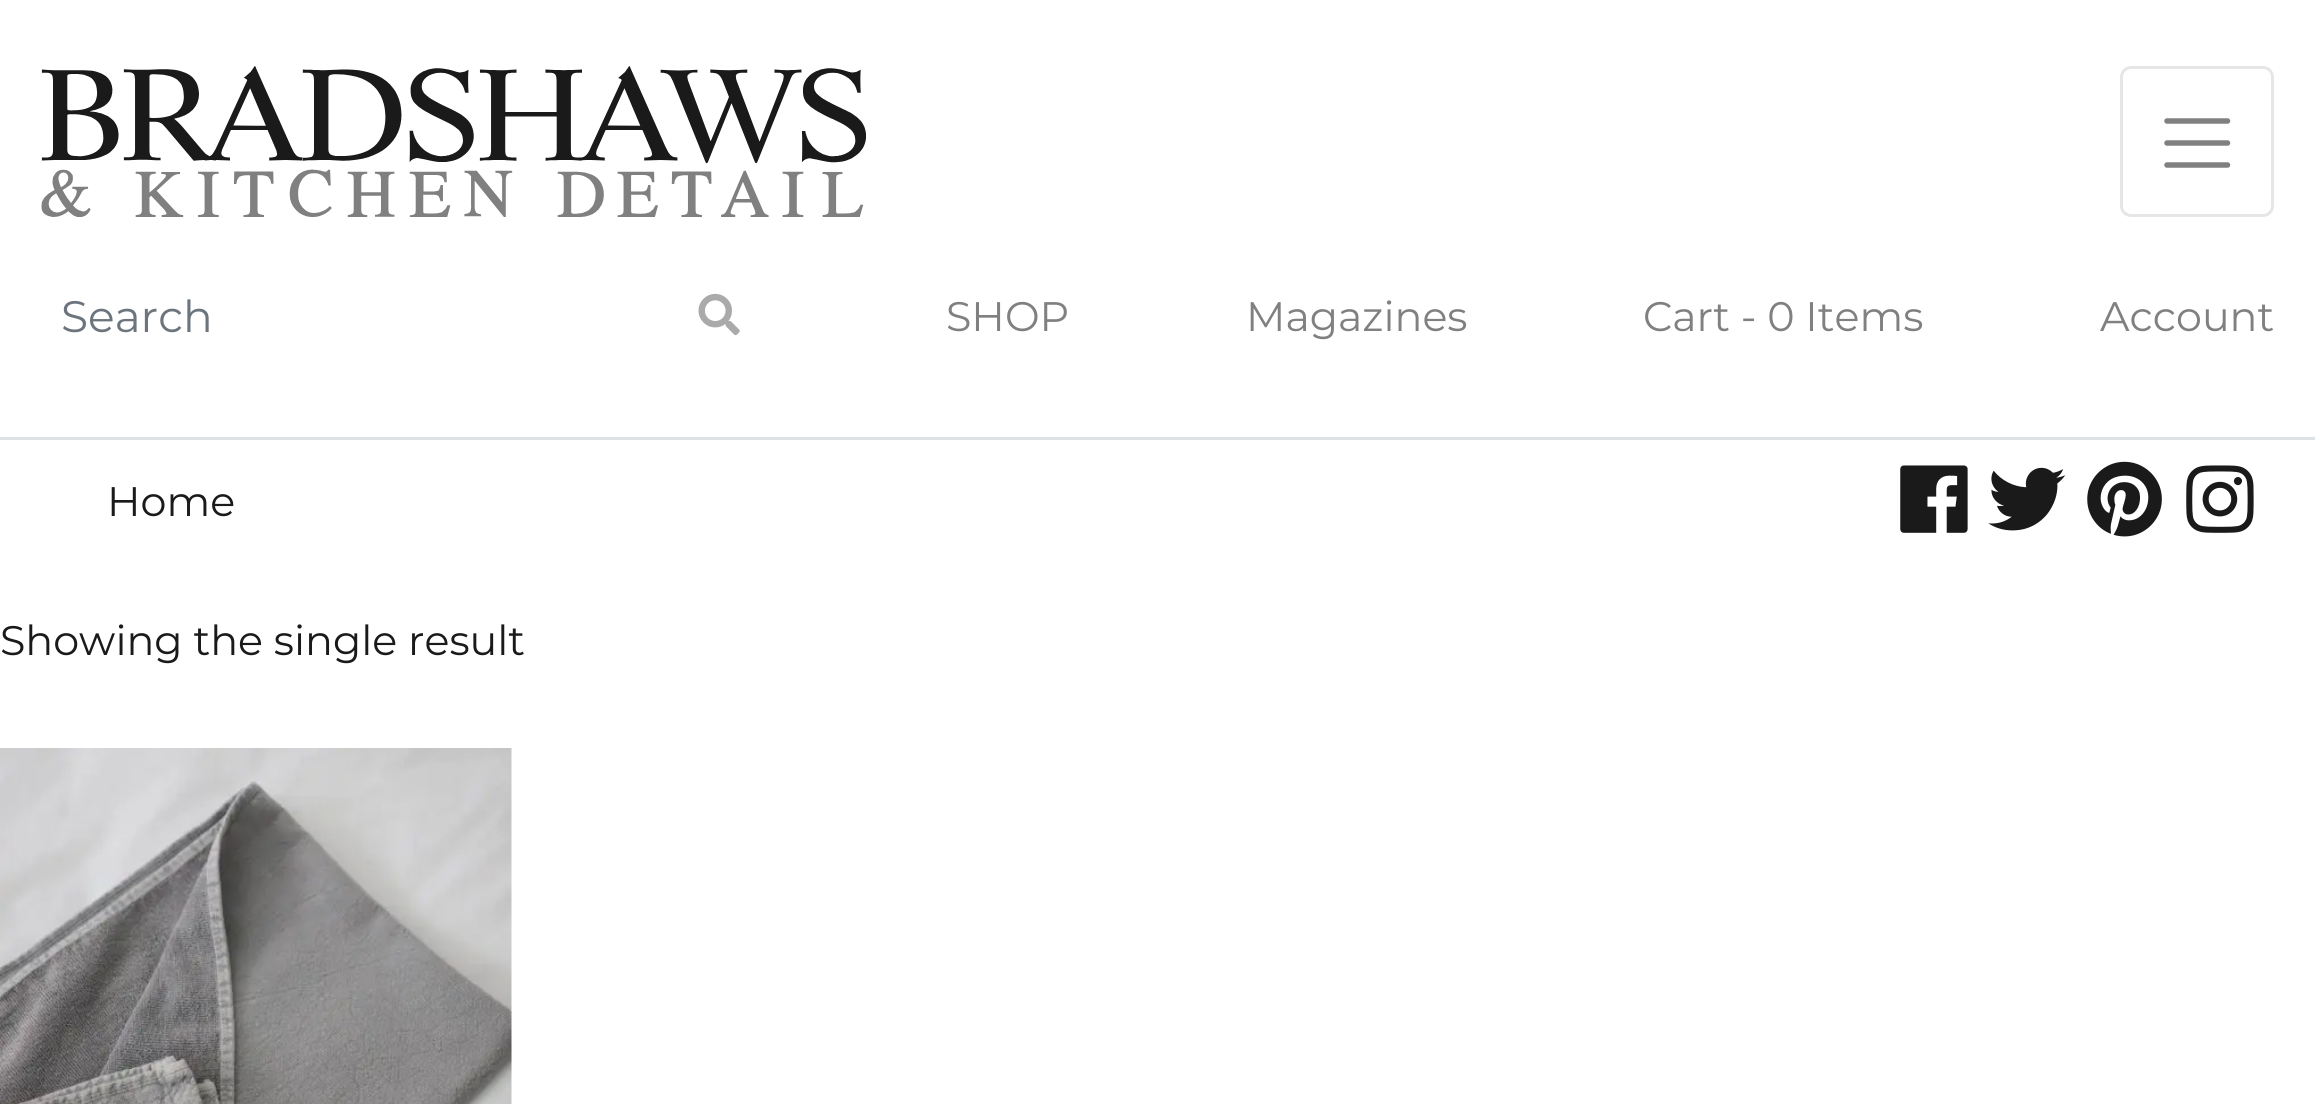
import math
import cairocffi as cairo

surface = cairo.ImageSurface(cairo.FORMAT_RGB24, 2315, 1104)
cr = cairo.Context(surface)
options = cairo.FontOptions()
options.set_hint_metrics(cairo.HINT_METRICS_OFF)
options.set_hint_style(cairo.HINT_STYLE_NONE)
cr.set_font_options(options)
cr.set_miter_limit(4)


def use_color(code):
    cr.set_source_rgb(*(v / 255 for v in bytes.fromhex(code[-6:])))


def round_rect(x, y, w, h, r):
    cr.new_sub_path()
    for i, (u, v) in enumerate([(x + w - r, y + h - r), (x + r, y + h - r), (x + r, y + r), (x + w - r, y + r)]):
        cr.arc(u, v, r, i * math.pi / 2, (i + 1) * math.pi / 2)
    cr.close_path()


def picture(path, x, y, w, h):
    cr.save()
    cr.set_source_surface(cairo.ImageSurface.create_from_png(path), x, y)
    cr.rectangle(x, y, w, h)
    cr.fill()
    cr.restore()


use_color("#ffffff")
cr.paint()
use_color("#dee2e6")
cr.rectangle(0, 437, 2315, 3)
cr.fill()
picture("img1.png", 41, 66, 825, 151)
round_rect(2121.5, 67.5, 151, 148, 9.5)
use_color("#e6e6e6")
cr.set_line_width(3)
cr.stroke()
cr.new_path()
cr.move_to(2167, 121)
cr.line_to(2227.5, 121)
cr.move_to(2167, 143)
cr.line_to(2227.5, 143)
cr.move_to(2167, 165)
cr.line_to(2227.5, 165)
use_color("#808080")
cr.set_line_width(5.5)
cr.set_line_cap(cairo.LINE_CAP_ROUND)
cr.stroke()
cr.select_font_face("Montserrat")
cr.set_font_size(44)
use_color("#6c757d")
cr.move_to(61, 332)
cr.show_text("Search")
picture("img2.png", 698, 293, 42, 43)
cr.set_font_size(41.25)
use_color("#808080")
cr.move_to(946, 331)
cr.show_text("SHOP")
cr.move_to(1246, 331)
cr.show_text("Magazines")
cr.move_to(1643, 331)
cr.show_text("Cart - 0 Items")
cr.move_to(2100, 331)
cr.show_text("Account")
use_color("#1a1a1a")
cr.move_to(107, 516)
cr.show_text("Home")
picture("img3.png", 1900, 465, 68, 68)
picture("img4.png", 1988, 467, 78, 64)
picture("img5.png", 2087, 461, 75, 76)
picture("img6.png", 2186, 465, 68, 68)
cr.move_to(0, 655)
cr.show_text("Showing the single result")
picture("img7.png", 0, 748, 512, 356)
surface.write_to_png("result.png")
